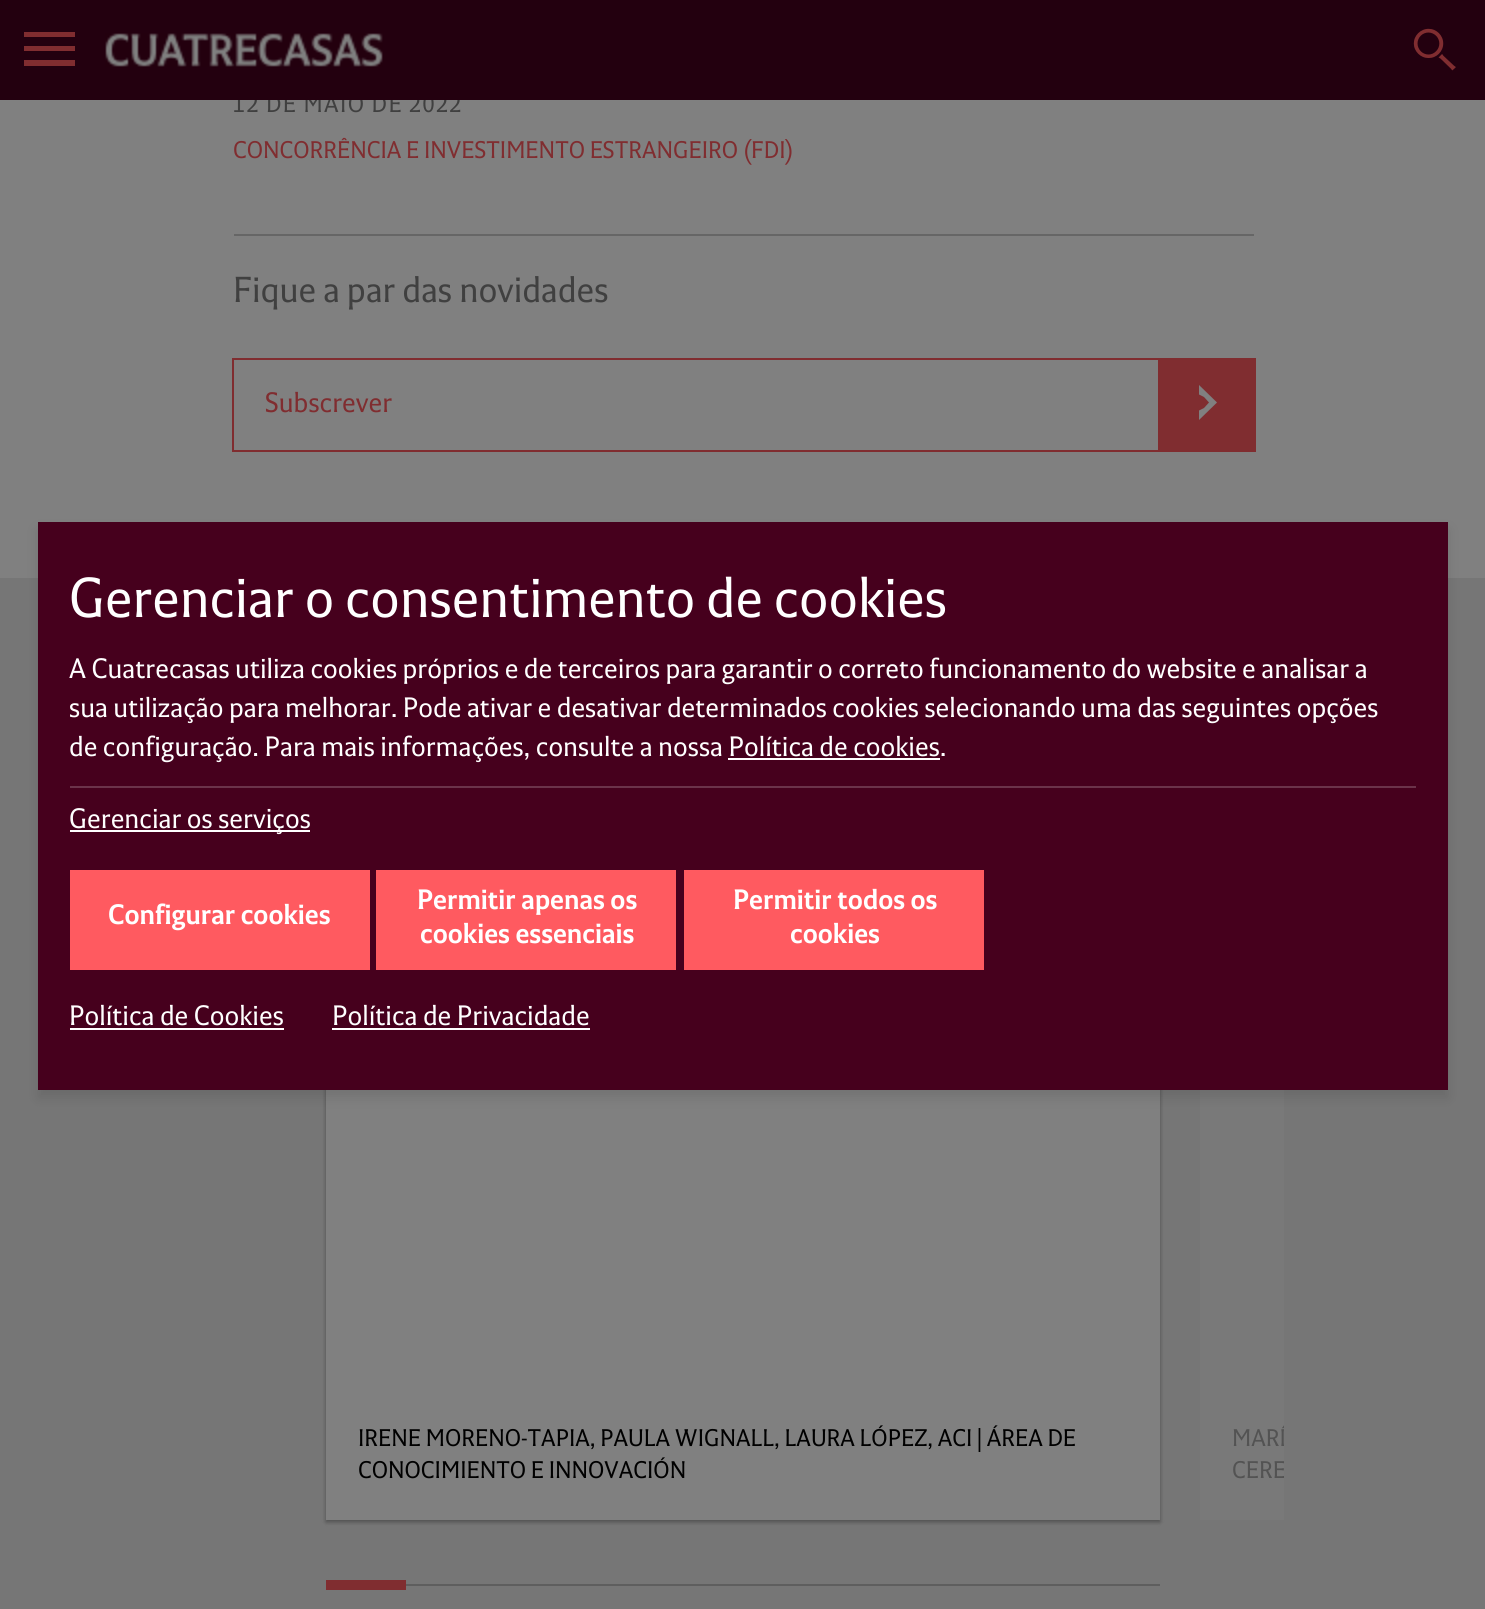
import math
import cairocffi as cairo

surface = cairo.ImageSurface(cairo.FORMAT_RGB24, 1485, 1609)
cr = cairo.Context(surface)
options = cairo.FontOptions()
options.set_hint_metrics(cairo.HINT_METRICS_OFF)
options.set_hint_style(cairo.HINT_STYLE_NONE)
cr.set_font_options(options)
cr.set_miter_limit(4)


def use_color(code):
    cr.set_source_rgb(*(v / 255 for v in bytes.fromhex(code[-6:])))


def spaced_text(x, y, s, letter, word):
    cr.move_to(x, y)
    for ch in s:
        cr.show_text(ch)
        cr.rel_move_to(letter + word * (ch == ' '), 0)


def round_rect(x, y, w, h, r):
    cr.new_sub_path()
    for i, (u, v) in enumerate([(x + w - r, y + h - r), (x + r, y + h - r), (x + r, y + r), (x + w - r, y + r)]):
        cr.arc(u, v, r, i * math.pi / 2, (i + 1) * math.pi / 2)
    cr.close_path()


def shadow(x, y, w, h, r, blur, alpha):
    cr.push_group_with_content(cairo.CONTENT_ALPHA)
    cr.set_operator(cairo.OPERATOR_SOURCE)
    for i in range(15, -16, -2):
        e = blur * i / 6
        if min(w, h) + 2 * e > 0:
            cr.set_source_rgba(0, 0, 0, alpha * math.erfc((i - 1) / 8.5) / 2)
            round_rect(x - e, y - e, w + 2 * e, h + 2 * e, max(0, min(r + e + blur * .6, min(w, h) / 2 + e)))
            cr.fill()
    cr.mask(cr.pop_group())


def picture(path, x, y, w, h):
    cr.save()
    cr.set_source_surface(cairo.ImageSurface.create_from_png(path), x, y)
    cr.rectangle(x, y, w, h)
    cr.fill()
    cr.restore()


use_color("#808080")
cr.paint()
cr.select_font_face("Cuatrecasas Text")
cr.set_font_size(24)
use_color("#404040")
spaced_text(233, 112, "12 DE MAIO DE 2022", 1.4, 0)
use_color("#23000f")
cr.rectangle(0, 0, 1485, 100)
cr.fill()
use_color("#802d30")
cr.new_path()
cr.move_to(24, 66)
cr.line_to(24, 60)
cr.line_to(75, 60)
cr.line_to(75, 66)
cr.close_path()
cr.move_to(24, 51)
cr.line_to(24, 46)
cr.line_to(75, 46)
cr.line_to(75, 51)
cr.close_path()
cr.move_to(24, 32)
cr.line_to(75, 32)
cr.line_to(75, 37)
cr.line_to(24, 37)
cr.close_path()
cr.fill()
picture("img1.png", 105, 33, 278, 34)
picture("img2.png", 1413, 28, 43, 43)
cr.move_to(233, 158)
cr.show_text("CONCORRÊNCIA E INVESTIMENTO ESTRANGEIRO (FDI)")
use_color("#666666")
cr.rectangle(234, 234, 1020, 2)
cr.fill()
cr.set_font_size(36)
use_color("#404040")
cr.move_to(233, 302)
cr.show_text("Fique a par das novidades")
cr.rectangle(233, 359, 1022, 92)
use_color("#802d30")
cr.stroke()
cr.rectangle(1158, 360, 96, 90)
cr.fill()
cr.set_font_size(28)
cr.move_to(265, 412)
cr.show_text("Subscrever")
use_color("#808080")
cr.new_path()
cr.move_to(1199, 385)
cr.line_to(1217, 402.5)
cr.line_to(1199, 420)
cr.line_to(1199, 410.5)
cr.line_to(1204, 408)
cr.line_to(1209, 402.5)
cr.line_to(1204, 397)
cr.line_to(1199, 394.5)
cr.close_path()
cr.fill()
use_color("#767676")
cr.rectangle(0, 578, 1485, 1031)
cr.fill()
use_color("#000000")
shadow(326, 754, 834, 768, 0, 2, 0.24)
shadow(326, 754, 834, 768, 0, 3, 0.12)
use_color("#808080")
cr.rectangle(326, 1090, 834, 430)
cr.fill()
cr.set_font_size(24)
use_color("#000000")
cr.move_to(358, 1446)
cr.show_text("IRENE MORENO-TAPIA, PAULA WIGNALL, LAURA LÓPEZ, ACI | ÁREA DE")
cr.move_to(358, 1478)
cr.show_text("CONOCIMIENTO E INNOVACIÓN")
use_color("#797979")
cr.rectangle(1200, 1090, 84, 430)
cr.fill()
cr.save()
cr.rectangle(204, 578, 1080, 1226)
cr.clip()
use_color("#535353")
cr.move_to(1232, 1446)
cr.show_text("MARÍ")
cr.move_to(1232, 1478)
cr.show_text("CERE")
cr.restore()
use_color("#5e5e5e")
cr.rectangle(406, 1584, 754, 2)
cr.fill()
use_color("#802d30")
cr.rectangle(326, 1580, 80, 10)
cr.fill()
use_color("#000000")
shadow(38, 530, 1410, 568, 0, 6, 0.1)
use_color("#46001d")
cr.rectangle(38, 522, 1410, 568)
cr.fill()
use_color("#6b334a")
cr.rectangle(70, 786, 1346, 2)
cr.fill()
cr.set_font_size(56)
use_color("#ffffff")
cr.move_to(69, 617)
cr.show_text("Gerenciar o consentimento de cookies")
cr.set_font_size(28)
cr.move_to(69, 678)
cr.show_text("A Cuatrecasas utiliza cookies próprios e de terceiros para garantir o correto funcionamento do website e analisar a")
cr.move_to(69, 717)
cr.show_text("sua utilização para melhorar. Pode ativar e desativar determinados cookies selecionando uma das seguintes opções")
cr.move_to(69, 756)
cr.show_text("de configuração. Para mais informações, consulte a nossa Política de cookies.")
cr.rectangle(728, 758, 212, 2)
cr.fill()
cr.rectangle(70, 830, 240, 2)
cr.fill()
cr.move_to(69, 828)
cr.show_text("Gerenciar os serviços")
use_color("#ff5a60")
cr.rectangle(70, 870, 300, 100)
cr.fill()
cr.select_font_face("Cuatrecasas Text", cairo.FONT_SLANT_NORMAL, cairo.FONT_WEIGHT_BOLD)
use_color("#ffffff")
cr.move_to(108, 924)
cr.show_text("Configurar cookies")
use_color("#ff5a60")
cr.rectangle(376, 870, 300, 100)
cr.fill()
use_color("#ffffff")
cr.move_to(417, 909)
cr.show_text("Permitir apenas os")
cr.move_to(420, 943)
cr.show_text("cookies essenciais")
use_color("#ff5a60")
cr.rectangle(684, 870, 300, 100)
cr.fill()
use_color("#ffffff")
cr.move_to(733, 909)
cr.show_text("Permitir todos os")
cr.move_to(790, 943)
cr.show_text("cookies")
cr.select_font_face("Cuatrecasas Text")
cr.move_to(69, 1025)
cr.show_text("Política de Cookies")
cr.rectangle(70, 1028, 214, 2)
cr.fill()
cr.move_to(332, 1025)
cr.show_text("Política de Privacidade")
cr.rectangle(332, 1028, 258, 2)
cr.fill()
surface.write_to_png("result.png")
